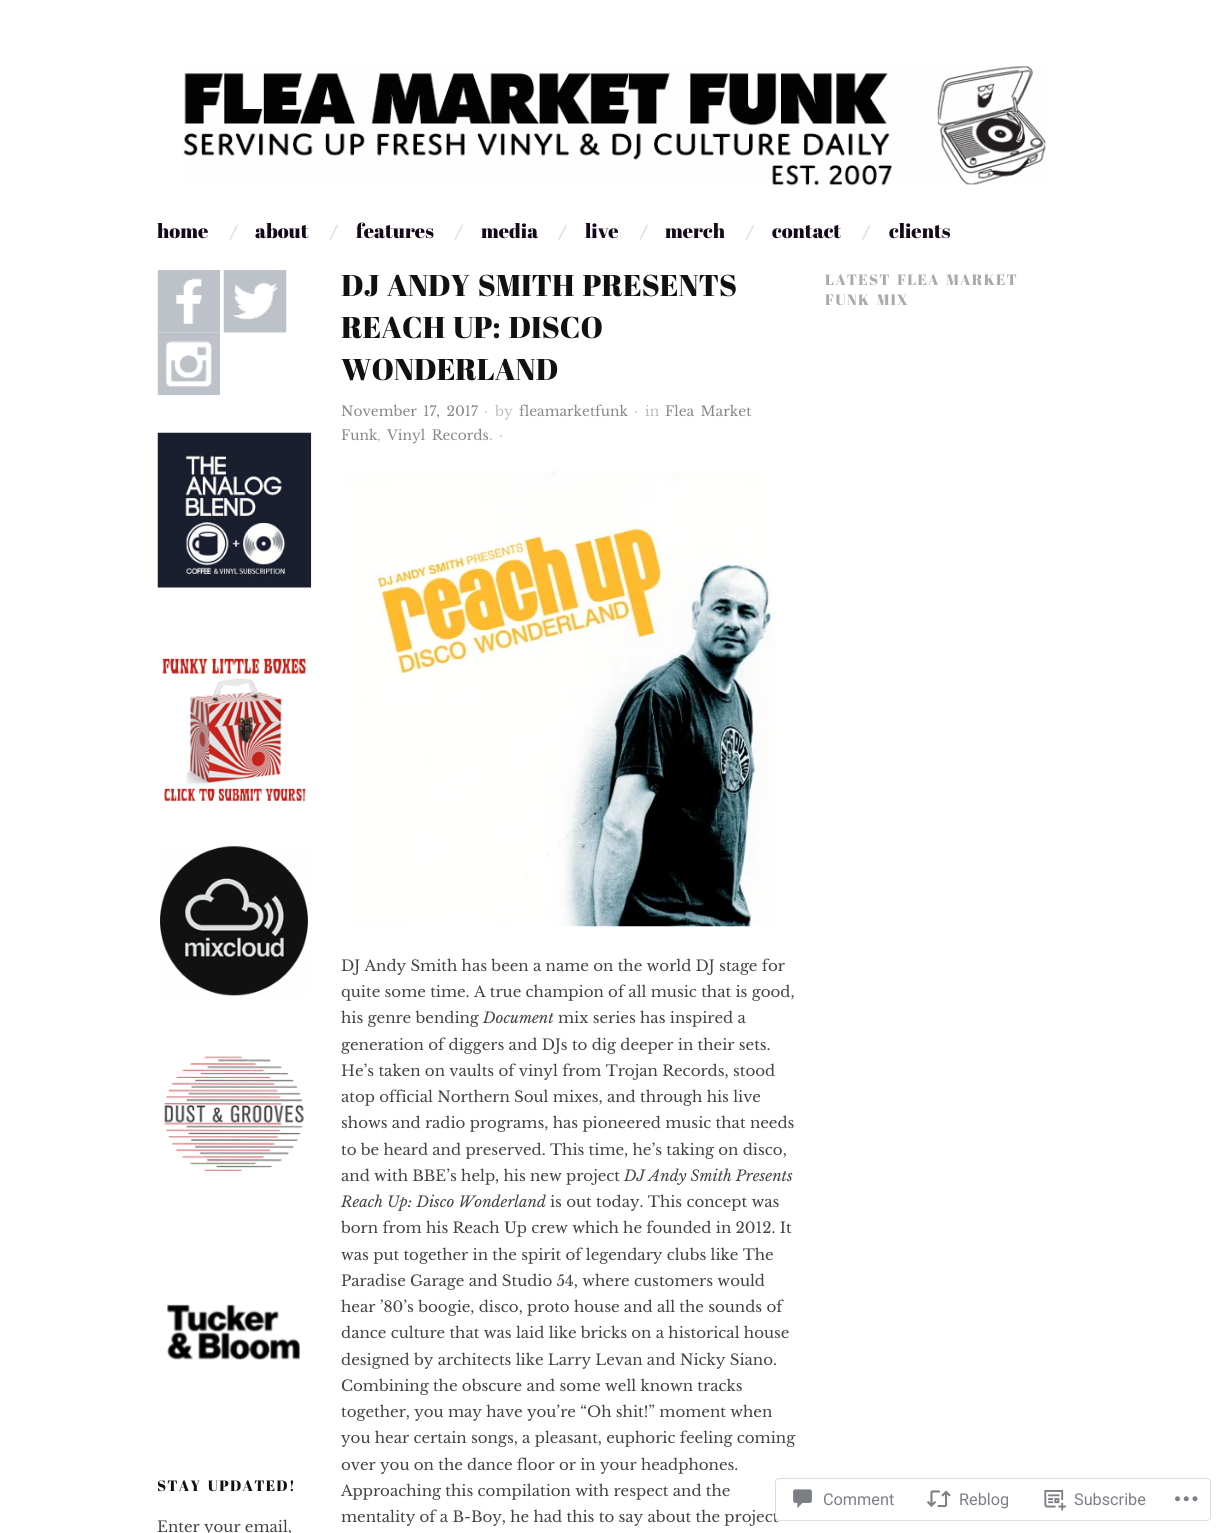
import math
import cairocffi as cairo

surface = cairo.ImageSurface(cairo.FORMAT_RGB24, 1223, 1533)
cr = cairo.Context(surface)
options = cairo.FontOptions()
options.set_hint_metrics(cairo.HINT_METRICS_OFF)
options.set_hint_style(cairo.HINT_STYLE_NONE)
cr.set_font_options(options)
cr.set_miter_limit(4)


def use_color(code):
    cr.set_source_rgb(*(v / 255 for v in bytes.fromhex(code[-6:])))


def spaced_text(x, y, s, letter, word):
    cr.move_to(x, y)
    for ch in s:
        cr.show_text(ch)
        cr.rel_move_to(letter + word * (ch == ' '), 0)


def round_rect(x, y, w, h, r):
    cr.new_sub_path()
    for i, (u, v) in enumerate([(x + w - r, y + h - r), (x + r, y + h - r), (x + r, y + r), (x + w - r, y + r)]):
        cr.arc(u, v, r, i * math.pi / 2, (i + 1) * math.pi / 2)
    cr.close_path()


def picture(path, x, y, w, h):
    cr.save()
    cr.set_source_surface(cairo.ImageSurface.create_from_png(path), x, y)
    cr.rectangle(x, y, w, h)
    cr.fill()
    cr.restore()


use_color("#ffffff")
cr.paint()
picture("img1.png", 183, 66, 863, 120)
cr.select_font_face("Abril Fatface")
cr.set_font_size(20)
use_color("#14091a")
cr.move_to(157, 238)
cr.show_text("home")
picture("img2.png", 229, 224, 10, 16)
cr.move_to(255, 238)
cr.show_text("about")
picture("img2.png", 329, 224, 10, 16)
cr.move_to(356, 238)
cr.show_text("features")
picture("img2.png", 454, 224, 10, 16)
cr.move_to(481, 238)
cr.show_text("media")
picture("img3.png", 557, 224, 11, 16)
cr.move_to(585, 238)
cr.show_text("live")
picture("img2.png", 639, 224, 10, 16)
cr.move_to(665, 238)
cr.show_text("merch")
picture("img4.png", 745, 224, 10, 16)
cr.move_to(772, 238)
cr.show_text("contact")
picture("img5.png", 861, 224, 10, 16)
cr.move_to(889, 238)
cr.show_text("clients")
cr.set_font_size(30)
use_color("#111111")
spaced_text(341, 296, "DJ ANDY SMITH PRESENTS", 0, 2.5)
spaced_text(341, 338, "REACH UP: DISCO", 0, 2.5)
cr.move_to(341, 380)
cr.show_text("WONDERLAND")
cr.select_font_face("Libre Baskerville")
cr.set_font_size(13.75)
use_color("#888888")
spaced_text(341, 416, "November 17, 2017", 0, 2.5)
use_color("#bbbbbb")
cr.move_to(484, 416)
cr.show_text("·")
cr.move_to(495, 416)
cr.show_text("by")
use_color("#888888")
cr.move_to(519, 416)
cr.show_text("fleamarketfunk")
use_color("#bbbbbb")
cr.move_to(634, 416)
cr.show_text("·")
cr.move_to(645, 416)
cr.show_text("in")
use_color("#888888")
spaced_text(665, 416, "Flea Market", 0, 2.5)
cr.move_to(341, 440)
cr.show_text("Funk")
spaced_text(387, 440, "Vinyl Records", 0, 2.5)
use_color("#bbbbbb")
cr.move_to(499, 440)
cr.show_text("·")
cr.move_to(377, 440)
cr.show_text(",")
cr.move_to(489, 440)
cr.show_text(".")
picture("img6.png", 349, 471, 428, 456)
cr.set_font_size(15)
use_color("#444444")
cr.move_to(341, 971)
cr.show_text("DJ Andy Smith has been a name on the world DJ stage for")
cr.move_to(341, 997)
cr.show_text("quite some time. A true champion of all music that is good,")
cr.move_to(341, 1023)
cr.show_text("his genre bending")
cr.select_font_face("Libre Baskerville", cairo.FONT_SLANT_ITALIC)
cr.move_to(483, 1023)
cr.show_text("Document")
cr.select_font_face("Libre Baskerville")
cr.move_to(558, 1023)
cr.show_text("mix series has inspired a")
cr.move_to(341, 1050)
cr.show_text("generation of diggers and DJs to dig deeper in their sets.")
cr.move_to(341, 1076)
cr.show_text("He’s taken on vaults of vinyl from Trojan Records, stood")
cr.move_to(341, 1102)
cr.show_text("atop official Northern Soul mixes, and through his live")
cr.move_to(341, 1128)
cr.show_text("shows and radio programs, has pioneered music that needs")
cr.move_to(341, 1155)
cr.show_text("to be heard and preserved. This time, he’s taking on disco,")
cr.move_to(341, 1181)
cr.show_text("and with BBE’s help, his new project")
cr.select_font_face("Libre Baskerville", cairo.FONT_SLANT_ITALIC)
cr.move_to(624, 1181)
cr.show_text("DJ Andy Smith Presents")
cr.move_to(341, 1207)
cr.show_text("Reach Up: Disco Wonderland")
cr.select_font_face("Libre Baskerville")
cr.move_to(550, 1207)
cr.show_text("is out today. This concept was")
cr.move_to(341, 1233)
cr.show_text("born from his Reach Up crew which he founded in 2012. It")
cr.move_to(341, 1260)
cr.show_text("was put together in the spirit of legendary clubs like The")
cr.move_to(341, 1286)
cr.show_text("Paradise Garage and Studio 54, where customers would")
cr.move_to(341, 1312)
cr.show_text("hear ’80’s boogie, disco, proto house and all the sounds of")
cr.move_to(341, 1338)
cr.show_text("dance culture that was laid like bricks on a historical house")
cr.move_to(341, 1365)
cr.show_text("designed by architects like Larry Levan and Nicky Siano.")
cr.move_to(341, 1391)
cr.show_text("Combining the obscure and some well known tracks")
cr.move_to(341, 1417)
cr.show_text("together, you may have you’re “Oh shit!” moment when")
cr.move_to(341, 1443)
cr.show_text("you hear certain songs, a pleasant, euphoric feeling coming")
cr.move_to(341, 1470)
cr.show_text("over you on the dance floor or in your headphones.")
cr.move_to(341, 1496)
cr.show_text("Approaching this compilation with respect and the")
cr.move_to(341, 1522)
cr.show_text("mentality of a B-Boy, he had this to say about the project")
cr.select_font_face("Abril Fatface")
use_color("#aaaaaa")
spaced_text(825, 285, "LATEST FLEA MARKET", 1.25, 2.5)
spaced_text(825, 305, "FUNK MIX", 1.25, 2.5)
picture("img7.png", 157, 270, 63, 63)
picture("img8.png", 223, 270, 64, 63)
picture("img9.png", 157, 332, 63, 63)
picture("img10.png", 157, 432, 155, 156)
picture("img11.png", 162, 658, 145, 144)
picture("img12.png", 160, 846, 148, 150)
picture("img13.png", 164, 1056, 140, 115)
picture("img14.png", 166, 1304, 134, 56)
cr.save()
cr.rectangle(158, 1474, 153, 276)
cr.clip()
use_color("#111111")
spaced_text(157, 1491, "STAY UPDATED!", 1.25, 2.5)
cr.restore()
cr.select_font_face("Libre Baskerville")
use_color("#444444")
cr.move_to(157, 1532)
cr.show_text("Enter your email,")
cr.set_source_rgba(1, 1, 1, 0.98)
round_rect(775, 1478, 436, 43, 4)
cr.fill()
round_rect(775.5, 1478.5, 435, 42, 3.5)
cr.set_source_rgba(0.863, 0.863, 0.871, 0.98)
cr.set_line_width(1)
cr.stroke()
picture("img15.png", 793, 1489, 19, 19)
cr.select_font_face("Roboto")
cr.set_font_size(16.25)
use_color("#7b7f85")
cr.move_to(823, 1505)
cr.show_text("Comment")
picture("img16.png", 926, 1490, 25, 18)
cr.move_to(959, 1505)
cr.show_text("Reblog")
picture("img17.png", 1044, 1490, 22, 21)
cr.move_to(1074, 1505)
cr.show_text("Subscribe")
picture("img18.png", 1175, 1496, 23, 6)
surface.write_to_png("result.png")
